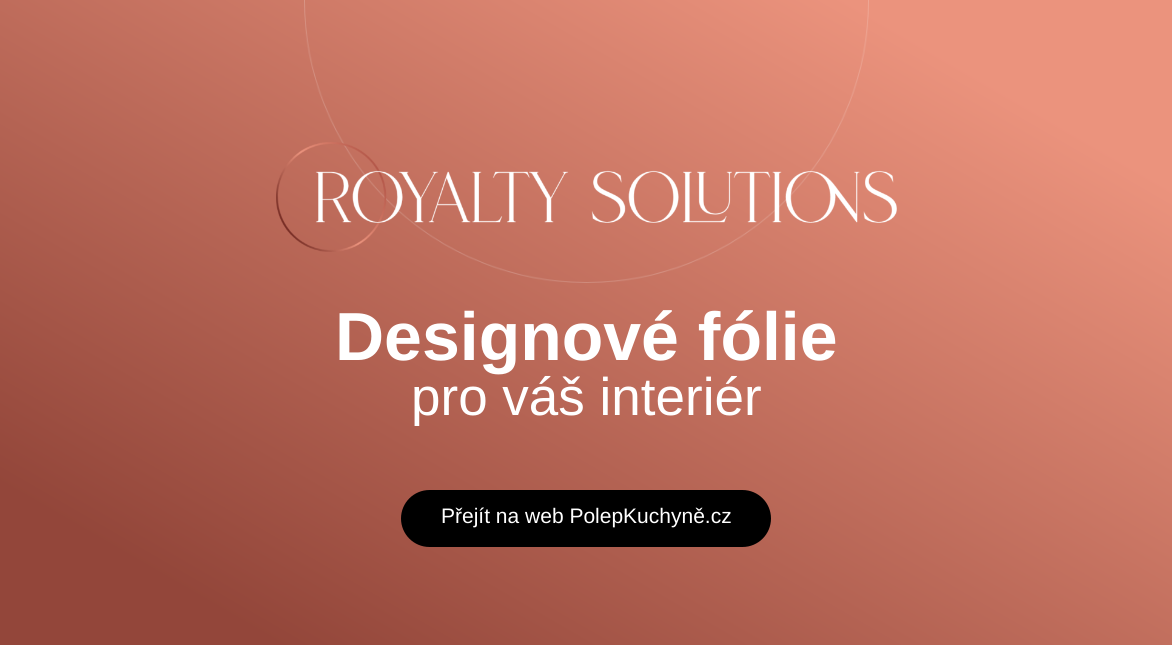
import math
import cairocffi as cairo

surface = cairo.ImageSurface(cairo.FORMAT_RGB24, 1172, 645)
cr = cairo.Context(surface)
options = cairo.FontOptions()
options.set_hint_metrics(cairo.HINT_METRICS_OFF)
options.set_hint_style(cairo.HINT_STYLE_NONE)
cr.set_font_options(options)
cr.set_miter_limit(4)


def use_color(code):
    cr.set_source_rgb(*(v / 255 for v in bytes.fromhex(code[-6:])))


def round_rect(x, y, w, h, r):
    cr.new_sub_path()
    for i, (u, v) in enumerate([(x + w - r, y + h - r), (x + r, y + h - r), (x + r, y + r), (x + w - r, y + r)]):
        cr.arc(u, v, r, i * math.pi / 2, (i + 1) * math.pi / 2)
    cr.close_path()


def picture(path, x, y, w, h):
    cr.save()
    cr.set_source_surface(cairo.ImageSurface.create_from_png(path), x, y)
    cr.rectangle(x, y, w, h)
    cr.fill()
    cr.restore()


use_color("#ffffff")
cr.paint()
gradient = cairo.LinearGradient(875, -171, 297, 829)
gradient.add_color_stop_rgba(0.14, 0.922, 0.576, 0.49, 1)
gradient.add_color_stop_rgba(0.87, 0.576, 0.275, 0.227, 1)
cr.set_source(gradient)
cr.rectangle(0, 0, 1172, 645)
cr.fill()
picture("img1.png", 304, 0, 565, 283)
picture("img2.png", 276, 142, 621, 110)
cr.select_font_face("Liberation Sans", cairo.FONT_SLANT_NORMAL, cairo.FONT_WEIGHT_BOLD)
cr.set_font_size(68)
use_color("#ffffff")
cr.move_to(335, 360)
cr.show_text("Designové fólie")
cr.select_font_face("Liberation Sans")
cr.set_font_size(53)
cr.move_to(411, 415)
cr.show_text("pro váš interiér")
use_color("#000000")
round_rect(401, 490, 370, 57, 28.5)
cr.fill()
cr.set_font_size(21)
use_color("#ffffff")
cr.move_to(441, 523)
cr.show_text("Přejít na web PolepKuchyně.cz")
surface.write_to_png("result.png")
